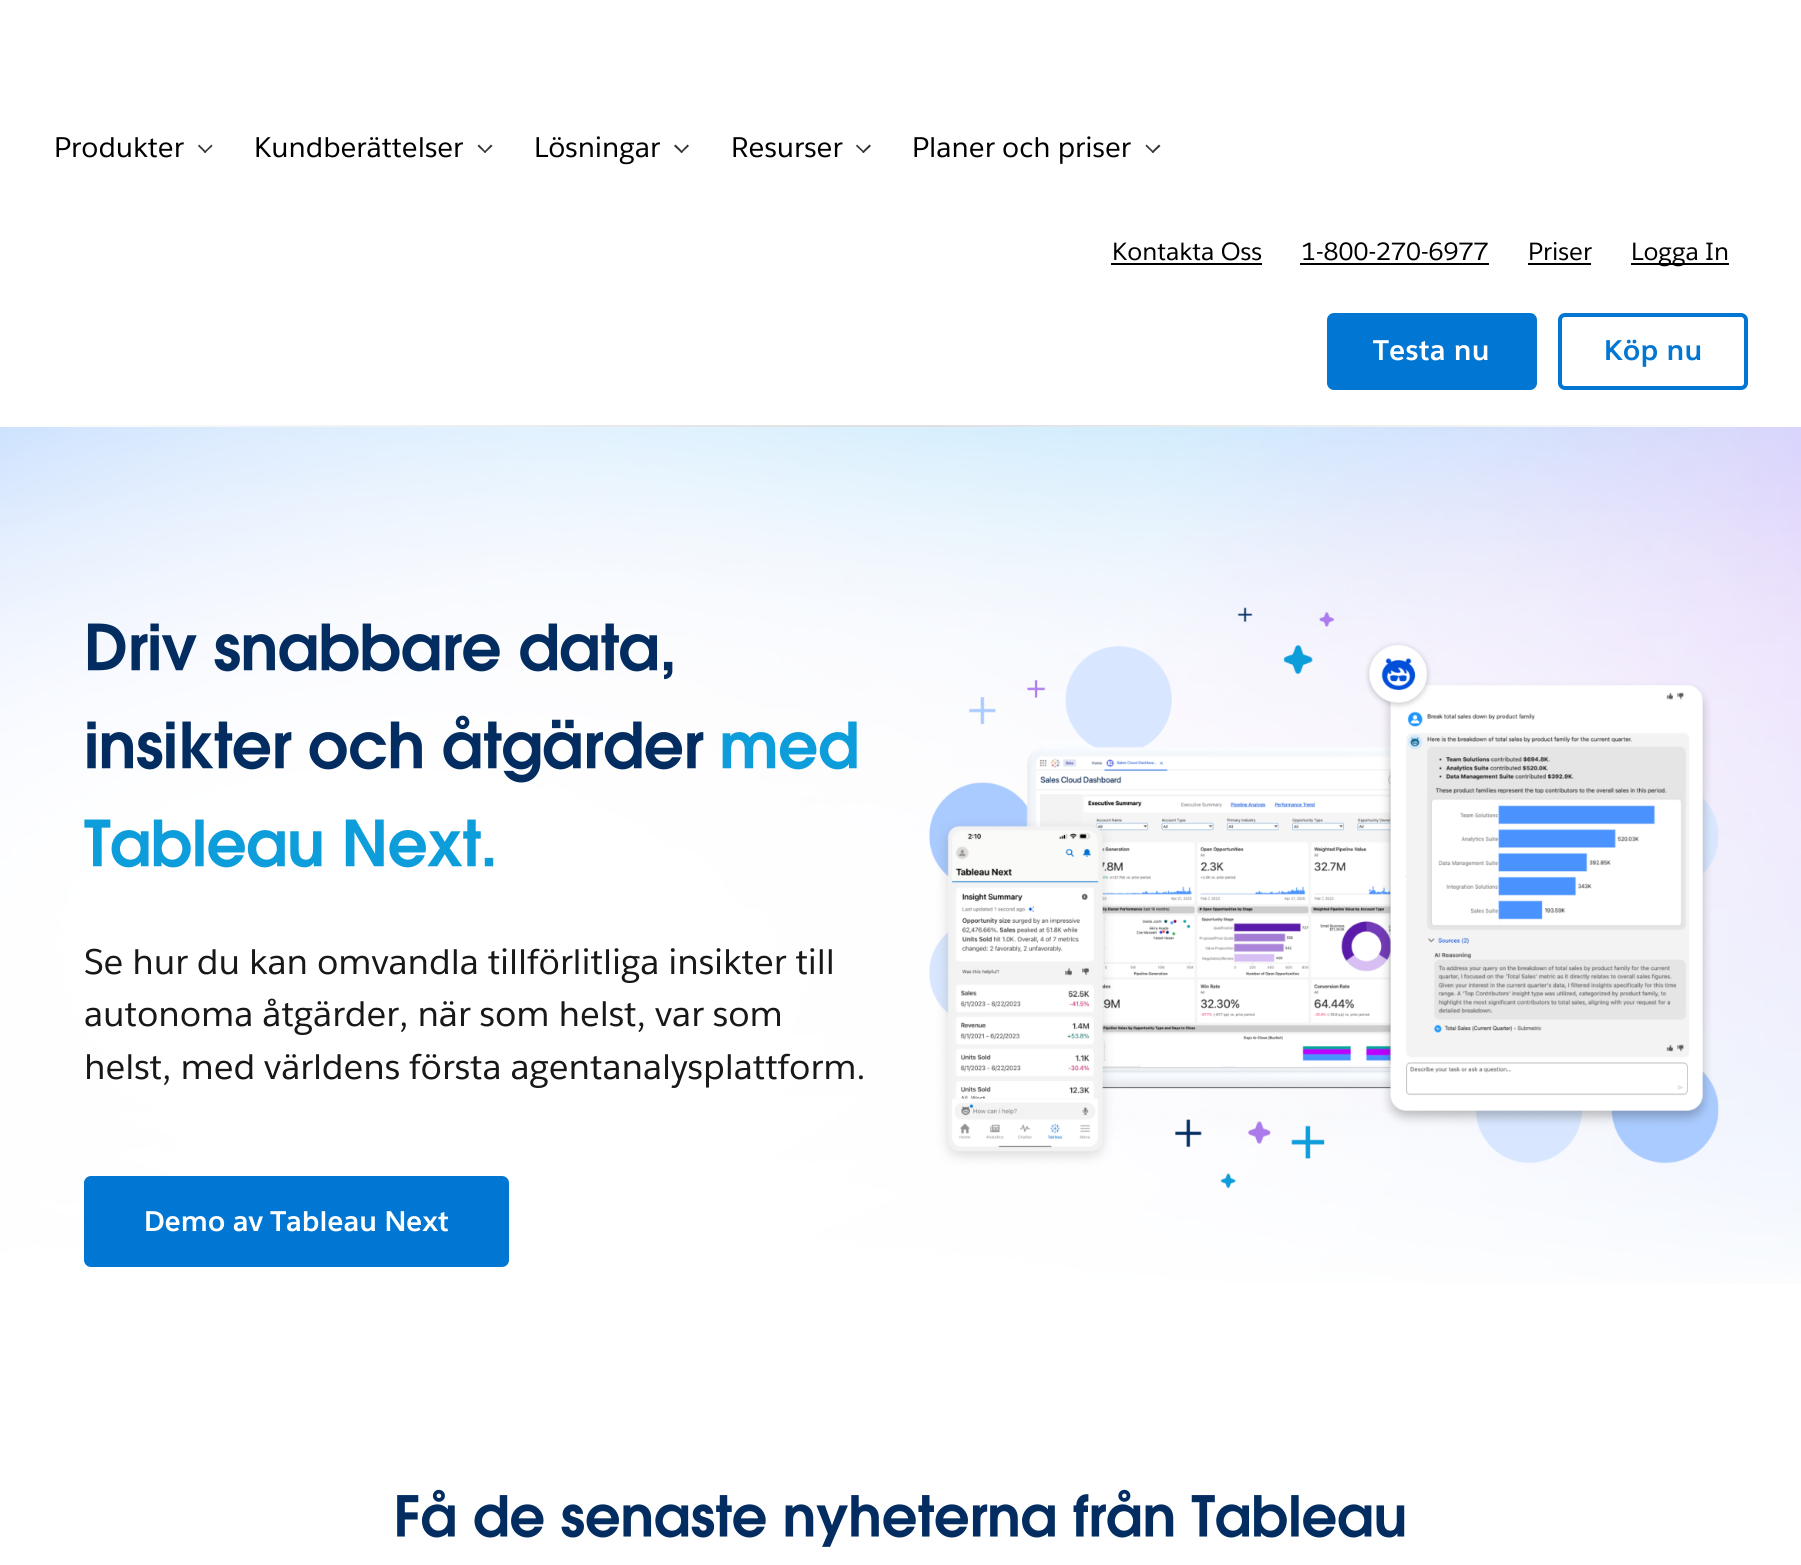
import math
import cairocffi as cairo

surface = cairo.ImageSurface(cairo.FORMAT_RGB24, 1801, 1565)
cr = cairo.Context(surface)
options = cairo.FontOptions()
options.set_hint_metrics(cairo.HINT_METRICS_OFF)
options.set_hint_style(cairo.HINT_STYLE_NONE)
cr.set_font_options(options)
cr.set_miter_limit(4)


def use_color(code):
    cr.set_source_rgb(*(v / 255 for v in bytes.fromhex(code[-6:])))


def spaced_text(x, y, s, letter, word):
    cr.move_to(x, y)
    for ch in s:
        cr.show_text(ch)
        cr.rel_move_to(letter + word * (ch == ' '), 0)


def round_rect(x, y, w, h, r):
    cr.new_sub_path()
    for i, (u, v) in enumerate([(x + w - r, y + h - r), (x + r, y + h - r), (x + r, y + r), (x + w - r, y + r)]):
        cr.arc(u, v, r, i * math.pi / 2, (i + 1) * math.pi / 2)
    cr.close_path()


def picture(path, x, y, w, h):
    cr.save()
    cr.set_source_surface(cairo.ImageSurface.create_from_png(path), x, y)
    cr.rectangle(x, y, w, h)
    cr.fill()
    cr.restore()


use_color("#ffffff")
cr.paint()
cr.select_font_face("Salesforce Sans")
cr.set_font_size(28)
use_color("#000000")
cr.move_to(54, 157)
cr.show_text("Produkter")
use_color("#333333")
cr.new_path()
cr.move_to(211.5, 144.5)
cr.line_to(212.5, 146)
cr.line_to(205, 153)
cr.line_to(204, 152)
cr.close_path()
cr.fill()
cr.new_path()
cr.move_to(199, 144.5)
cr.line_to(206.5, 152)
cr.line_to(205, 153)
cr.line_to(198, 146)
cr.close_path()
cr.fill()
use_color("#000000")
cr.move_to(254, 157)
cr.show_text("Kundberättelser")
use_color("#333333")
cr.new_path()
cr.move_to(491, 144.5)
cr.line_to(492.5, 146)
cr.line_to(485, 153)
cr.line_to(484, 152)
cr.close_path()
cr.fill()
cr.new_path()
cr.move_to(479, 144.5)
cr.line_to(486, 152)
cr.line_to(485, 153)
cr.line_to(477.5, 146)
cr.close_path()
cr.fill()
use_color("#000000")
cr.move_to(534, 157)
cr.show_text("Lösningar")
use_color("#333333")
cr.new_path()
cr.move_to(687.5, 144.5)
cr.line_to(689, 146)
cr.line_to(681.5, 153)
cr.line_to(680.5, 152)
cr.close_path()
cr.fill()
cr.new_path()
cr.move_to(675.5, 144.5)
cr.line_to(683, 152)
cr.line_to(681.5, 153)
cr.line_to(674, 146)
cr.close_path()
cr.fill()
use_color("#000000")
cr.move_to(731, 157)
cr.show_text("Resurser")
use_color("#333333")
cr.new_path()
cr.move_to(869.5, 144.5)
cr.line_to(871, 146)
cr.line_to(863.5, 153)
cr.line_to(862, 152)
cr.close_path()
cr.fill()
cr.new_path()
cr.move_to(857, 144.5)
cr.line_to(864.5, 152)
cr.line_to(863.5, 153)
cr.line_to(856, 146)
cr.close_path()
cr.fill()
use_color("#000000")
cr.move_to(912, 157)
cr.show_text("Planer och priser")
use_color("#333333")
cr.new_path()
cr.move_to(1159, 144.5)
cr.line_to(1160.5, 146)
cr.line_to(1153, 153)
cr.line_to(1151.5, 152)
cr.close_path()
cr.fill()
cr.new_path()
cr.move_to(1146.5, 144.5)
cr.line_to(1154, 152)
cr.line_to(1153, 153)
cr.line_to(1145.5, 146)
cr.close_path()
cr.fill()
cr.set_font_size(24.5)
use_color("#000000")
cr.move_to(1112, 260)
cr.show_text("Kontakta Oss")
cr.rectangle(1111, 263, 151, 2)
cr.fill()
cr.move_to(1301, 260)
cr.show_text("1-800-270-6977")
cr.rectangle(1300, 263, 189, 2)
cr.fill()
cr.move_to(1528, 260)
cr.show_text("Priser")
cr.rectangle(1528, 263, 63, 2)
cr.fill()
cr.rectangle(1631, 263, 98, 2)
cr.fill()
cr.move_to(1631, 260)
cr.show_text("Logga In")
use_color("#0176d3")
round_rect(1329, 315, 206, 73, 5)
cr.fill_preserve()
cr.set_line_width(4)
cr.stroke()
cr.select_font_face("Salesforce Sans", cairo.FONT_SLANT_NORMAL, cairo.FONT_WEIGHT_BOLD)
cr.set_font_size(28)
use_color("#ffffff")
spaced_text(1373, 360, "Testa nu", 0.25, 0)
round_rect(1560, 315, 186, 73, 5)
use_color("#0176d3")
cr.stroke()
spaced_text(1604, 360, "Köp nu", 0.25, 0)
gradient = cairo.LinearGradient(0, 426, 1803, 426)
gradient.add_color_stop_rgba(0, 1, 1, 1, 1)
gradient.add_color_stop_rgba(0.5, 0.871, 0.871, 0.871, 1)
gradient.add_color_stop_rgba(1, 1, 1, 1, 1)
cr.set_source(gradient)
cr.rectangle(68, 425, 1667, 2)
cr.fill()
picture("img1.png", 0, 427, 1801, 857)
picture("img2.png", 87, 623, 586, 57)
picture("img3.png", 87, 715, 617, 68)
picture("img4.png", 722, 721, 135, 49)
picture("img5.png", 84, 819, 410, 49)
cr.select_font_face("Salesforce Sans")
cr.set_font_size(35)
use_color("#181818")
spaced_text(84, 974, "Se hur du kan omvandla tillförlitliga insikter till", -0.05, 0)
spaced_text(84, 1026, "autonoma åtgärder, när som helst, var som", -0.05, 0)
spaced_text(84, 1079, "helst, med världens första agentanalysplattform.", -0.05, 0)
use_color("#0176d3")
round_rect(86, 1178, 421, 87, 5)
cr.fill_preserve()
cr.stroke()
cr.select_font_face("Salesforce Sans", cairo.FONT_SLANT_NORMAL, cairo.FONT_WEIGHT_BOLD)
cr.set_font_size(28)
use_color("#ffffff")
spaced_text(144, 1231, "Demo av Tableau Next", -0.1, 0)
picture("img6.png", 929, 607, 790, 582)
picture("img7.png", 397, 1489, 1008, 58)
surface.write_to_png("result.png")
